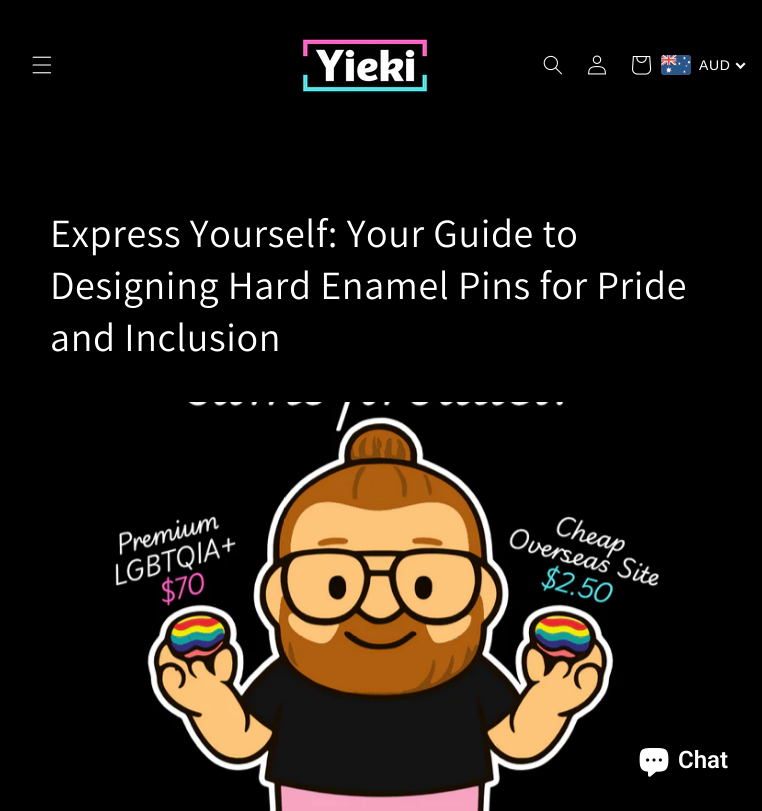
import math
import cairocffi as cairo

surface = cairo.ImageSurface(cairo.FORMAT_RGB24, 762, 811)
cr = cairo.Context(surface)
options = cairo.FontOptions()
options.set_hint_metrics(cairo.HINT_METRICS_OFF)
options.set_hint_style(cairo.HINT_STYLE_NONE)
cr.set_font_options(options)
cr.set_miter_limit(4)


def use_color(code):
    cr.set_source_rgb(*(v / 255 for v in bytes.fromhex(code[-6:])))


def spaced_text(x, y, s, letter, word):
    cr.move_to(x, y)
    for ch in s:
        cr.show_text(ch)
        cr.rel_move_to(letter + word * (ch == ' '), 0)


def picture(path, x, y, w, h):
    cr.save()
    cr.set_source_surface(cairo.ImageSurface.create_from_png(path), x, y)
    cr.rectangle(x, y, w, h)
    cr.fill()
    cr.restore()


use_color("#000000")
cr.paint()
picture("img1.png", 32, 56, 20, 18)
picture("img2.png", 302, 37, 127, 57)
picture("img3.png", 543, 55, 19, 20)
picture("img4.png", 588, 55, 18, 20)
picture("img5.png", 632, 56, 20, 19)
picture("img6.png", 661, 55, 30, 20)
cr.select_font_face("Liberation Sans")
cr.set_font_size(14)
use_color("#ffffff")
spaced_text(699, 70, "AUD", 0.6, 0)
cr.new_path()
cr.move_to(744, 62.5)
cr.line_to(745.5, 64)
cr.line_to(740.5, 69)
cr.line_to(739, 67.5)
cr.close_path()
cr.fill()
cr.new_path()
cr.move_to(737, 62.5)
cr.line_to(742, 67.5)
cr.line_to(740.5, 69)
cr.line_to(735.5, 64)
cr.close_path()
cr.fill()
cr.select_font_face("Assistant")
cr.set_font_size(40)
spaced_text(50, 247, "Express Yourself: Your Guide to", 0.6, 0)
spaced_text(50, 299, "Designing Hard Enamel Pins for Pride", 0.6, 0)
spaced_text(50, 351, "and Inclusion", 0.6, 0)
picture("img7.png", 50, 402, 662, 409)
picture("img8.png", 639, 748, 30, 29)
cr.select_font_face("Roboto SemiBold")
cr.set_font_size(24)
cr.move_to(678, 768)
cr.show_text("Chat")
surface.write_to_png("result.png")
